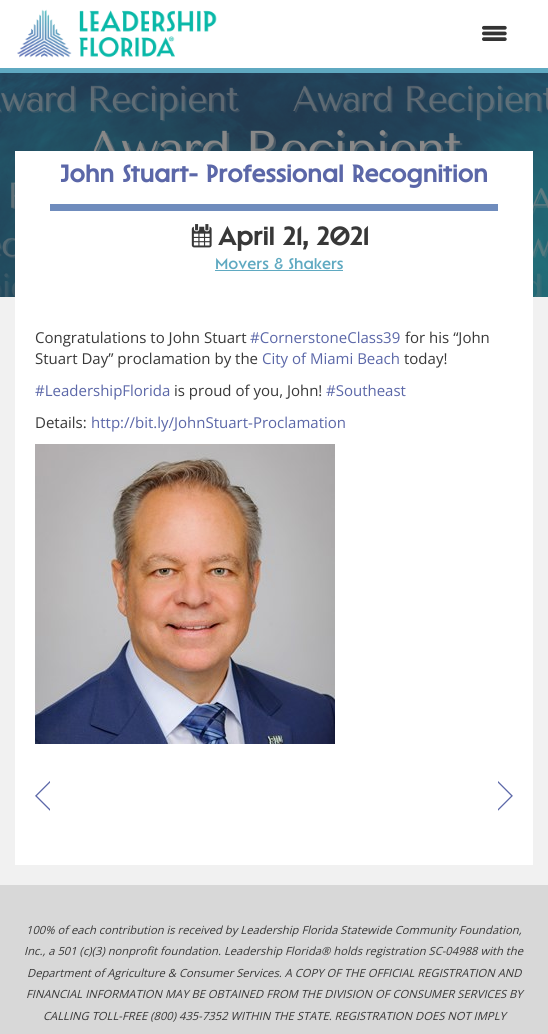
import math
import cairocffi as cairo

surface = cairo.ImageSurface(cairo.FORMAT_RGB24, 548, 1034)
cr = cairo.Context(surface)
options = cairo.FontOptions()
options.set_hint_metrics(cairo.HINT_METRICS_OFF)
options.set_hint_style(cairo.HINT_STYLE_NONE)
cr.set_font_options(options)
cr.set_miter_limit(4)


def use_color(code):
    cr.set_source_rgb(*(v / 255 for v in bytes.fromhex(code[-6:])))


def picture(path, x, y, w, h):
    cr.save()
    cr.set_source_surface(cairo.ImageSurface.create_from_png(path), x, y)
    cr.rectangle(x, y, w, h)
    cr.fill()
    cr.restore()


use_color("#f1f1f1")
cr.paint()
use_color("#ffffff")
cr.rectangle(0, 0, 548, 68)
cr.fill()
picture("img1.png", 17, 9, 200, 49)
picture("img2.png", 482, 25, 25, 16)
use_color("#5fa9c1")
cr.rectangle(0, 68, 548, 5)
cr.fill()
picture("img3.png", 0, 73, 548, 224)
use_color("#ffffff")
cr.rectangle(15, 151, 518, 714)
cr.fill()
use_color("#6f8cbd")
cr.rectangle(50, 204, 448, 7)
cr.fill()
cr.select_font_face("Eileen", cairo.FONT_SLANT_NORMAL, cairo.FONT_WEIGHT_BOLD)
cr.set_font_size(22.5)
use_color("#5b67a8")
cr.move_to(60, 182)
cr.show_text("John Stuart- Professional Recognition")
picture("img4.png", 191, 224, 21, 24)
cr.set_font_size(23.5)
use_color("#383838")
cr.move_to(218, 245)
cr.show_text("April 21, 2021")
cr.select_font_face("Eileen Medium")
cr.set_font_size(14.5)
use_color("#5fa9c1")
cr.move_to(215, 269)
cr.show_text("Movers & Shakers")
cr.rectangle(215, 270, 128, 1)
cr.fill()
cr.select_font_face("Open Sans")
cr.set_font_size(15)
use_color("#383838")
cr.move_to(35, 343)
cr.show_text("Congratulations to John Stuart")
use_color("#5b67a8")
cr.move_to(250, 343)
cr.show_text("#CornerstoneClass39")
use_color("#383838")
cr.move_to(405, 343)
cr.show_text("for his “John")
cr.move_to(35, 364)
cr.show_text("Stuart Day” proclamation by the")
use_color("#5b67a8")
cr.move_to(262, 364)
cr.show_text("City of Miami Beach")
use_color("#383838")
cr.move_to(404, 364)
cr.show_text("today!")
use_color("#5b67a8")
cr.move_to(35, 396)
cr.show_text("#LeadershipFlorida")
use_color("#383838")
cr.move_to(174, 396)
cr.show_text("is proud of you, John!")
use_color("#5b67a8")
cr.move_to(326, 396)
cr.show_text("#Southeast")
use_color("#383838")
cr.move_to(35, 428)
cr.show_text("Details:")
use_color("#5b67a8")
cr.move_to(91, 428)
cr.show_text("http://bit.ly/JohnStuart-Proclamation")
picture("img5.png", 35, 444, 300, 300)
picture("img6.png", 35, 781, 15, 30)
picture("img7.png", 498, 781, 15, 30)
use_color("#d8d8d8")
cr.rectangle(0, 885, 548, 149)
cr.fill()
cr.select_font_face("Open Sans", cairo.FONT_SLANT_ITALIC)
cr.set_font_size(11.25)
use_color("#383838")
cr.move_to(26, 934)
cr.show_text("100% of each contribution is received by Leadership Florida Statewide Community Foundation,")
cr.move_to(24, 955)
cr.show_text("Inc., a 501 (c)(3) nonprofit foundation. Leadership Florida® holds registration SC-04988 with the")
cr.move_to(27, 977)
cr.show_text("Department of Agriculture & Consumer Services. A COPY OF THE OFFICIAL REGISTRATION AND")
cr.move_to(26, 998)
cr.show_text("FINANCIAL INFORMATION MAY BE OBTAINED FROM THE DIVISION OF CONSUMER SERVICES BY")
cr.move_to(43, 1020)
cr.show_text("CALLING TOLL-FREE (800) 435-7352 WITHIN THE STATE. REGISTRATION DOES NOT IMPLY")
surface.write_to_png("result.png")
